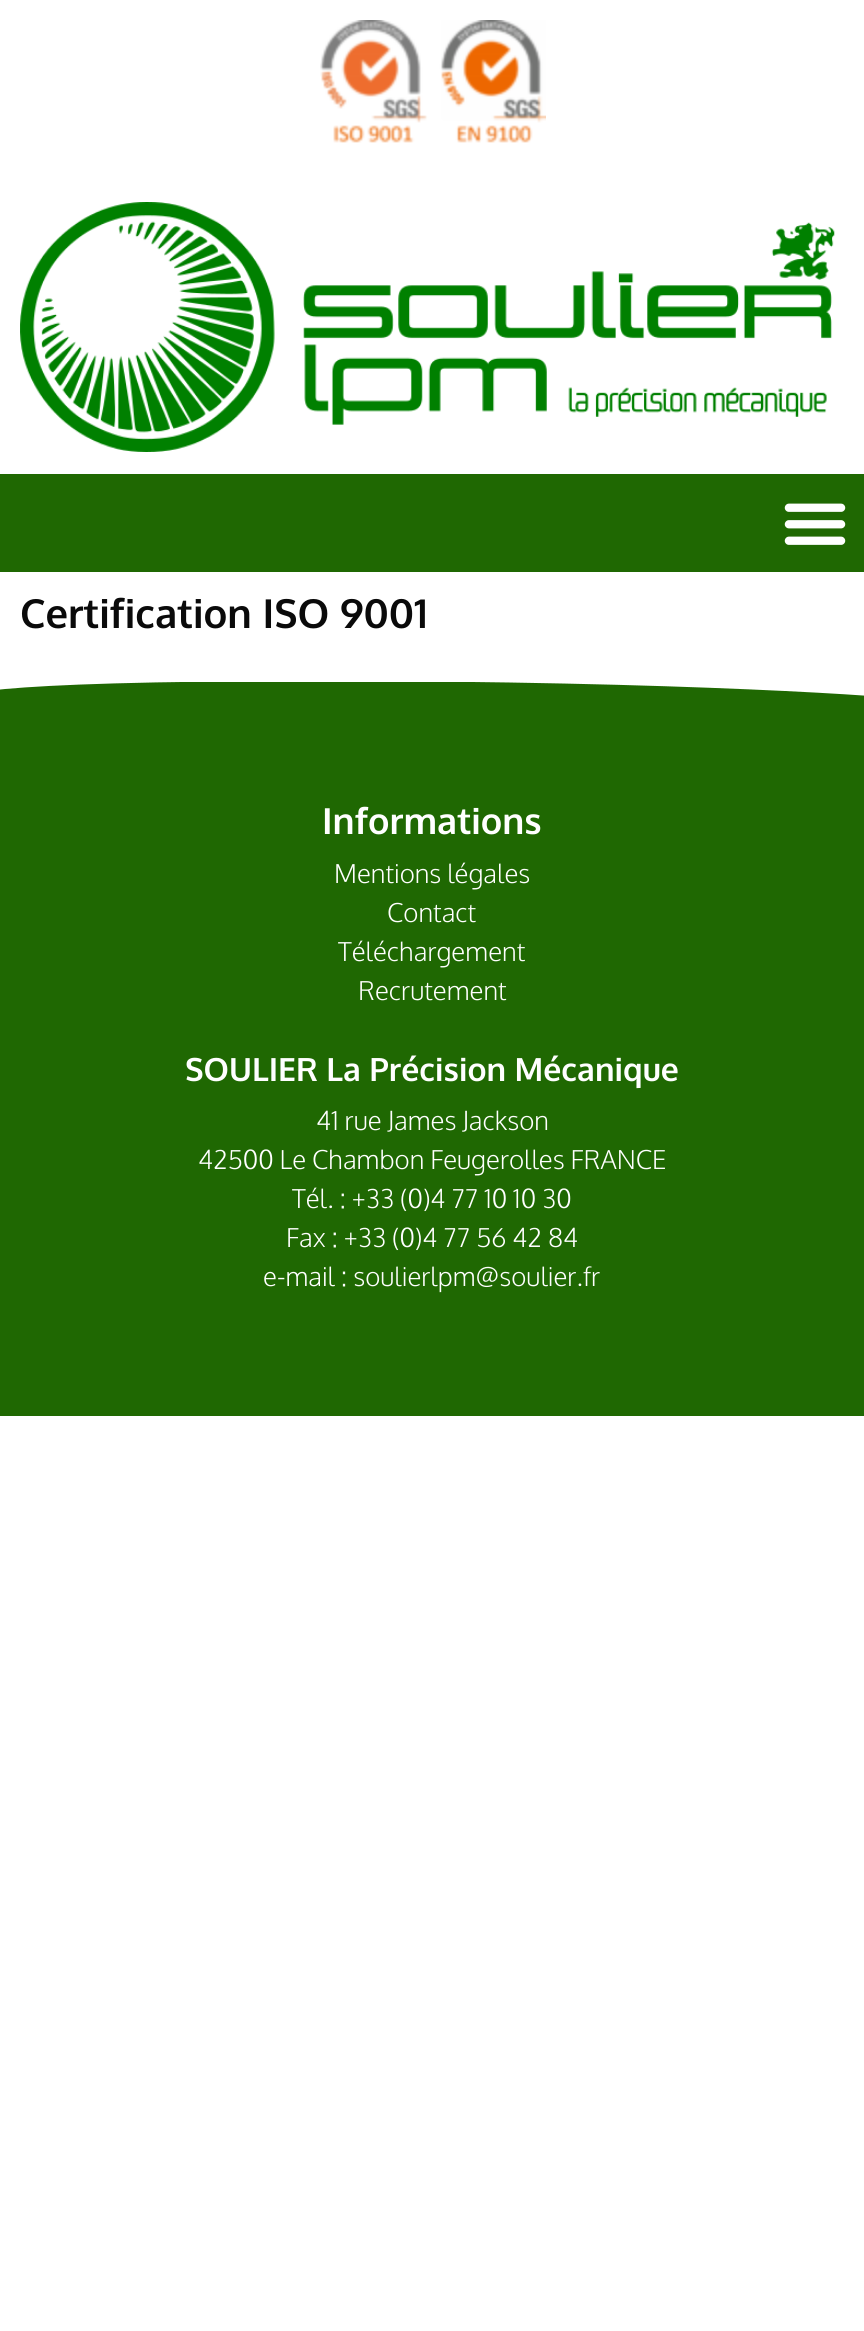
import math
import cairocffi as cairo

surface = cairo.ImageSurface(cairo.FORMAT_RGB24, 864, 2331)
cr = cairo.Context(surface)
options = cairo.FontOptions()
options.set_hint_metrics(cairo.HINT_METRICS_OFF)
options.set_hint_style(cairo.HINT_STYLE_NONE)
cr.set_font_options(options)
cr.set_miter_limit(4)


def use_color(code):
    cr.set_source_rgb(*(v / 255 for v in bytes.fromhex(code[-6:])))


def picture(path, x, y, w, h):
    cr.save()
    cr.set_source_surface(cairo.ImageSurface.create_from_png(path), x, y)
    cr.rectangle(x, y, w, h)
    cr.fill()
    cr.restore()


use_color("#ffffff")
cr.paint()
picture("img1.png", 320, 20, 226, 123)
picture("img2.png", 20, 202, 815, 250)
use_color("#1f6802")
cr.rectangle(0, 474, 864, 98)
cr.fill()
picture("img3.png", 784, 503, 62, 42)
cr.select_font_face("Oxygen", cairo.FONT_SLANT_NORMAL, cairo.FONT_WEIGHT_BOLD)
cr.set_font_size(40)
use_color("#0a0a0a")
cr.move_to(20, 628)
cr.show_text("Certification ISO 9001")
use_color("#1f6802")
cr.rectangle(0, 682, 864, 734)
cr.fill()
use_color("#ffffff")
cr.new_path()
cr.move_to(322, 681)
cr.curve_to(680, 681, 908, 697, 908, 700)
cr.line_to(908, 680)
cr.line_to(-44, 680)
cr.line_to(-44, 700)
cr.curve_to(-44, 696, -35, 681, 322, 681)
cr.close_path()
cr.fill()
cr.set_font_size(36)
cr.move_to(322, 834)
cr.show_text("Informations")
cr.select_font_face("Oxygen Light")
cr.set_font_size(26)
cr.move_to(334, 883)
cr.show_text("Mentions légales")
cr.move_to(387, 922)
cr.show_text("Contact")
cr.move_to(338, 961)
cr.show_text("Téléchargement")
cr.move_to(358, 1000)
cr.show_text("Recrutement")
cr.select_font_face("Oxygen", cairo.FONT_SLANT_NORMAL, cairo.FONT_WEIGHT_BOLD)
cr.set_font_size(32)
cr.move_to(185, 1081)
cr.show_text("SOULIER La Précision Mécanique")
cr.select_font_face("Oxygen Light")
cr.set_font_size(26)
cr.move_to(316, 1130)
cr.show_text("41 rue James Jackson")
cr.move_to(198, 1169)
cr.show_text("42500 Le Chambon Feugerolles FRANCE")
cr.move_to(292, 1208)
cr.show_text("Tél. : +33 (0)4 77 10 10 30")
cr.move_to(286, 1247)
cr.show_text("Fax : +33 (0)4 77 56 42 84")
cr.move_to(263, 1286)
cr.show_text("e-mail : soulierlpm@soulier.fr")
surface.write_to_png("result.png")
